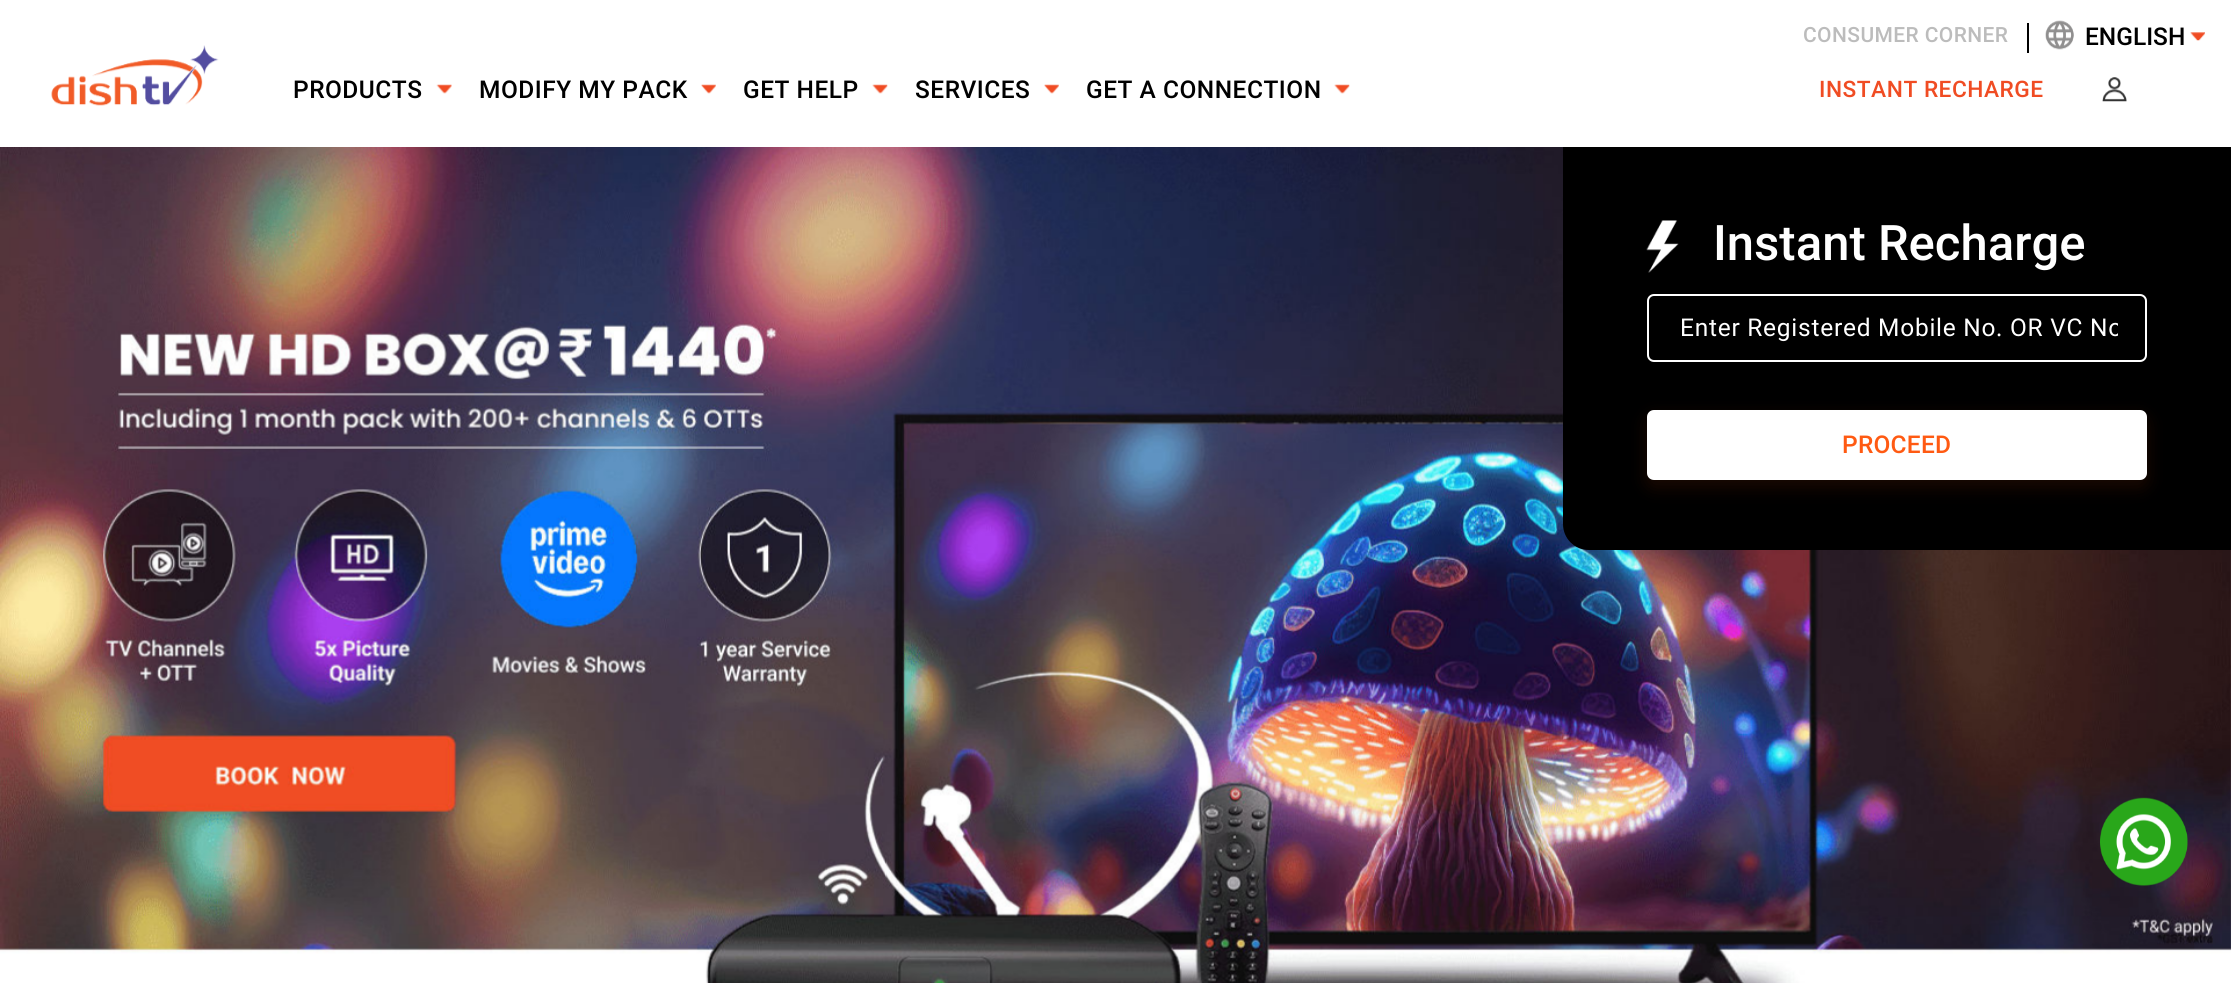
import math
import cairocffi as cairo

surface = cairo.ImageSurface(cairo.FORMAT_RGB24, 2231, 983)
cr = cairo.Context(surface)
options = cairo.FontOptions()
options.set_hint_metrics(cairo.HINT_METRICS_OFF)
options.set_hint_style(cairo.HINT_STYLE_NONE)
cr.set_font_options(options)
cr.set_miter_limit(4)


def use_color(code):
    cr.set_source_rgb(*(v / 255 for v in bytes.fromhex(code[-6:])))


def spaced_text(x, y, s, letter, word):
    cr.move_to(x, y)
    for ch in s:
        cr.show_text(ch)
        cr.rel_move_to(letter + word * (ch == ' '), 0)


def round_rect(x, y, w, h, r):
    cr.new_sub_path()
    for i, (u, v) in enumerate([(x + w - r, y + h - r), (x + r, y + h - r), (x + r, y + r), (x + w - r, y + r)]):
        cr.arc(u, v, r, i * math.pi / 2, (i + 1) * math.pi / 2)
    cr.close_path()


def shadow(x, y, w, h, r, blur, alpha):
    cr.push_group_with_content(cairo.CONTENT_ALPHA)
    cr.set_operator(cairo.OPERATOR_SOURCE)
    for i in range(15, -16, -2):
        e = blur * i / 6
        if min(w, h) + 2 * e > 0:
            cr.set_source_rgba(0, 0, 0, alpha * math.erfc((i - 1) / 8.5) / 2)
            round_rect(x - e, y - e, w + 2 * e, h + 2 * e, max(0, min(r + e + blur * .6, min(w, h) / 2 + e)))
            cr.fill()
    cr.mask(cr.pop_group())


def picture(path, x, y, w, h):
    cr.save()
    cr.set_source_surface(cairo.ImageSurface.create_from_png(path), x, y)
    cr.rectangle(x, y, w, h)
    cr.fill()
    cr.restore()


use_color("#ffffff")
cr.paint()
picture("img8.png", 0, 147, 2231, 836)
use_color("#000000")
cr.new_path()
cr.move_to(1563, 145)
cr.line_to(2231, 145)
cr.line_to(2231, 550)
cr.line_to(1589, 550)
cr.curve_to(1574.5, 550, 1563, 538.5, 1563, 524)
cr.close_path()
cr.fill()
use_color("#ffffff")
cr.rectangle(1563, 145, 668, 2)
cr.fill()
use_color("#000000")
cr.rectangle(2027, 23, 2, 30)
cr.fill()
cr.select_font_face("Roboto Medium")
cr.set_font_size(21)
use_color("#bcbcbc")
spaced_text(1803, 42, "CONSUMER CORNER", 0.4, 0)
picture("img1.png", 2045, 20, 29, 30)
cr.set_font_size(24.5)
use_color("#000000")
cr.move_to(2085, 45)
cr.show_text("ENGLISH")
picture("img2.png", 2190, 32, 15, 9)
picture("img3.png", 51, 45, 168, 61)
spaced_text(293, 98, "PRODUCTS", 0.5, 0)
picture("img4.png", 436, 84, 16, 10)
spaced_text(479, 98, "MODIFY MY PACK", 0.5, 0)
picture("img5.png", 701, 84, 15, 10)
spaced_text(743, 98, "GET HELP", 0.5, 0)
picture("img6.png", 872, 84, 16, 10)
spaced_text(915, 98, "SERVICES", 0.5, 0)
picture("img5.png", 1044, 84, 15, 10)
spaced_text(1086, 98, "GET A CONNECTION", 0.5, 0)
picture("img6.png", 1334, 84, 16, 10)
cr.set_font_size(22.75)
use_color("#f04c23")
spaced_text(1819, 97, "INSTANT RECHARGE", 0.5, 0)
picture("img7.png", 2102, 77, 25, 25)
picture("img9.png", 1646, 220, 33, 53)
cr.set_font_size(49)
use_color("#ffffff")
cr.move_to(1713, 260)
cr.show_text("Instant Recharge")
round_rect(1648, 295, 498, 66, 6)
cr.stroke()
cr.select_font_face("Roboto")
cr.set_font_size(24.5)
spaced_text(1680, 336, "Enter Registered Mobile No", 0.75, 0)
cr.select_font_face("Liberation Serif")
spaced_text(1996, 336, ".", 0.75, 0)
cr.save()
cr.rectangle(1680, 313, 438, 30)
cr.clip()
cr.select_font_face("Roboto")
spaced_text(2010, 336, "OR VC No", 0.75, 0)
cr.restore()
use_color("#b93c06")
shadow(1647, 417, 500, 70, 7, 9, 0.15)
use_color("#ffffff")
round_rect(1647, 410, 500, 70, 7)
cr.fill()
cr.select_font_face("Roboto Medium")
use_color("#ff5a12")
spaced_text(1842, 453, "PROCEED", 0.25, 0)
picture("img10.png", 2100, 797, 88, 89)
surface.write_to_png("result.png")
